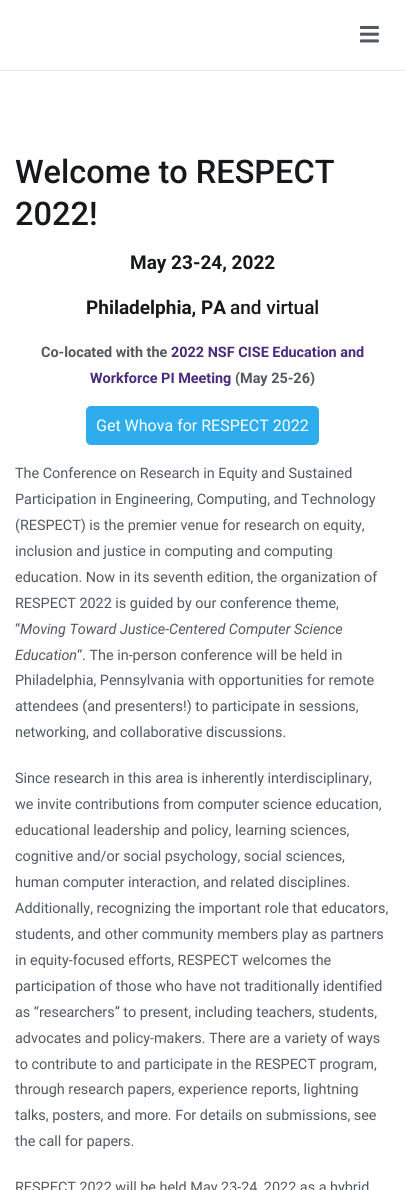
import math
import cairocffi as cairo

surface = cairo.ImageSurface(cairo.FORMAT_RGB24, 405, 1190)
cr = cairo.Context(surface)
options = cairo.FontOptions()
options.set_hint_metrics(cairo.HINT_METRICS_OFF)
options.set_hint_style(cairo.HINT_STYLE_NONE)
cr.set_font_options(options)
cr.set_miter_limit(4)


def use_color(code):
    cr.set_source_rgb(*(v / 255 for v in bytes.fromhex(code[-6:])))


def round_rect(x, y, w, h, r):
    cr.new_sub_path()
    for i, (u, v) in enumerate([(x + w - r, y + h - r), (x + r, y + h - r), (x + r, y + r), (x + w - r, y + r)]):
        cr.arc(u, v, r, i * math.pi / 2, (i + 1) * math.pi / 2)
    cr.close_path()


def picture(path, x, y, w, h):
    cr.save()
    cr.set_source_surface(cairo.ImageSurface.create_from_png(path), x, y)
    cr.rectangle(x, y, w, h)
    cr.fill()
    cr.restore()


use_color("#ffffff")
cr.paint()
use_color("#e9ecef")
cr.rectangle(0, 70, 405, 1)
cr.fill()
picture("img1.png", 360, 25, 19, 18)
cr.select_font_face("Roboto Medium")
cr.set_font_size(32.5)
use_color("#16181a")
cr.move_to(15, 183)
cr.show_text("Welcome to RESPECT")
cr.move_to(15, 225)
cr.show_text("2022!")
cr.select_font_face("Roboto", cairo.FONT_SLANT_NORMAL, cairo.FONT_WEIGHT_BOLD)
cr.set_font_size(19)
cr.move_to(130, 269)
cr.show_text("May 23-24, 2022")
cr.move_to(86, 314)
cr.show_text("Philadelphia, PA")
cr.select_font_face("Roboto Medium")
cr.move_to(230, 314)
cr.show_text("and virtual")
cr.select_font_face("Roboto", cairo.FONT_SLANT_NORMAL, cairo.FONT_WEIGHT_BOLD)
cr.set_font_size(14.4)
use_color("#51585f")
cr.move_to(41, 357)
cr.show_text("Co-located with the")
use_color("#492a7c")
cr.move_to(171, 357)
cr.show_text("2022 NSF CISE Education and")
cr.move_to(90, 383)
cr.show_text("Workforce PI Meeting")
use_color("#51585f")
cr.move_to(235, 383)
cr.show_text("(May 25-26)")
use_color("#2dacee")
round_rect(86, 406, 233, 39, 5)
cr.fill()
cr.select_font_face("Roboto")
cr.set_font_size(16)
use_color("#ffffff")
cr.move_to(96, 431)
cr.show_text("Get Whova for RESPECT 2022")
cr.set_font_size(14.4)
use_color("#51585f")
cr.move_to(15, 478)
cr.show_text("The Conference on Research in Equity and Sustained")
cr.move_to(15, 504)
cr.show_text("Participation in Engineering, Computing, and Technology")
cr.move_to(15, 530)
cr.show_text("(RESPECT) is the premier venue for research on equity,")
cr.move_to(15, 556)
cr.show_text("inclusion and justice in computing and computing")
cr.move_to(15, 582)
cr.show_text("education. Now in its seventh edition, the organization of")
cr.move_to(15, 608)
cr.show_text("RESPECT 2022 is guided by our conference theme,")
cr.move_to(15, 634)
cr.show_text("“")
cr.select_font_face("Roboto", cairo.FONT_SLANT_ITALIC)
cr.move_to(20, 634)
cr.show_text("Moving Toward Justice-Centered Computer Science")
cr.move_to(15, 660)
cr.show_text("Education")
cr.select_font_face("Roboto")
cr.move_to(77, 660)
cr.show_text("“. The in-person conference will be held in")
cr.move_to(15, 685)
cr.show_text("Philadelphia, Pennsylvania with opportunities for remote")
cr.move_to(15, 711)
cr.show_text("attendees (and presenters!) to participate in sessions,")
cr.move_to(15, 737)
cr.show_text("networking, and collaborative discussions.")
cr.move_to(15, 783)
cr.show_text("Since research in this area is inherently interdisciplinary,")
cr.move_to(15, 809)
cr.show_text("we invite contributions from computer science education,")
cr.move_to(15, 835)
cr.show_text("educational leadership and policy, learning sciences,")
cr.move_to(15, 861)
cr.show_text("cognitive and/or social psychology, social sciences,")
cr.move_to(15, 887)
cr.show_text("human computer interaction, and related disciplines.")
cr.move_to(15, 913)
cr.show_text("Additionally, recognizing the important role that educators,")
cr.move_to(15, 939)
cr.show_text("students, and other community members play as partners")
cr.move_to(15, 965)
cr.show_text("in equity-focused efforts, RESPECT welcomes the")
cr.move_to(15, 991)
cr.show_text("participation of those who have not traditionally identified")
cr.move_to(15, 1017)
cr.show_text("as “researchers” to present, including teachers, students,")
cr.move_to(15, 1043)
cr.show_text("advocates and policy-makers. There are a variety of ways")
cr.move_to(15, 1069)
cr.show_text("to contribute to and participate in the RESPECT program,")
cr.move_to(15, 1094)
cr.show_text("through research papers, experience reports, lightning")
cr.move_to(15, 1120)
cr.show_text("talks, posters, and more. For details on submissions, see")
cr.move_to(15, 1146)
cr.show_text("the call for papers.")
cr.move_to(15, 1192)
cr.show_text("RESPECT 2022 will be held May 23-24, 2022 as a hybrid")
surface.write_to_png("result.png")
